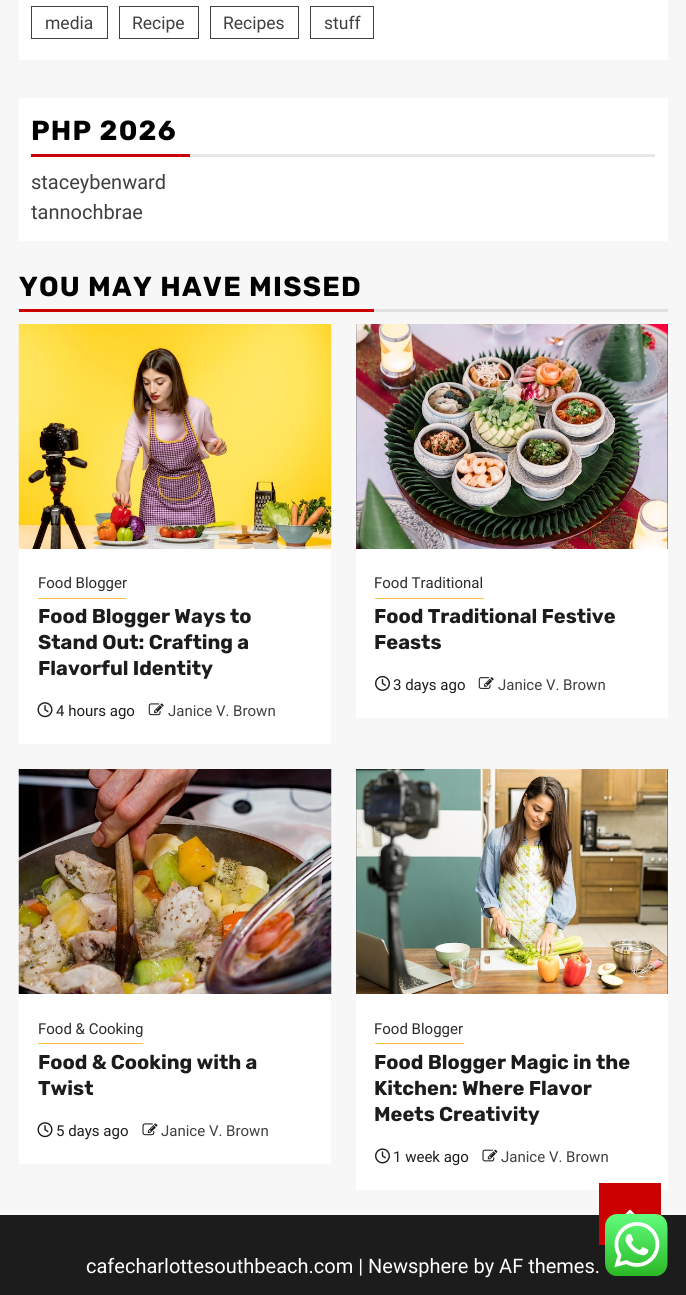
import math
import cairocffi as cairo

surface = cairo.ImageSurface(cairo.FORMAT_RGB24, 686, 1295)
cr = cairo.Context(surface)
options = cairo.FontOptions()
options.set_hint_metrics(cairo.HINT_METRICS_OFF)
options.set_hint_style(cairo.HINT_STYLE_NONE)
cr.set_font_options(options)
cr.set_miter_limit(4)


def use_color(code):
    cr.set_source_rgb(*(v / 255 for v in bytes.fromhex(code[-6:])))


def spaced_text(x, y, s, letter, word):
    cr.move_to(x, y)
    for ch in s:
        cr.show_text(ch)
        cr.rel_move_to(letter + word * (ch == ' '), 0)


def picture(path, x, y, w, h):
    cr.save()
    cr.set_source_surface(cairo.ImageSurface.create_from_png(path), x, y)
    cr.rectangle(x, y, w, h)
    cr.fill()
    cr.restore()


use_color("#f7f7f7")
cr.paint()
use_color("#ffffff")
cr.rectangle(19, 0, 649, 60)
cr.fill()
cr.rectangle(31.5, 6.5, 76, 32)
use_color("#404040")
cr.set_line_width(1)
cr.stroke()
cr.select_font_face("Roboto")
cr.set_font_size(17.5)
cr.move_to(45, 29)
cr.show_text("media")
cr.rectangle(119.5, 6.5, 79, 32)
cr.stroke()
cr.move_to(132, 29)
cr.show_text("Recipe")
cr.rectangle(210.5, 6.5, 88, 32)
cr.stroke()
cr.move_to(223, 29)
cr.show_text("Recipes")
cr.rectangle(310.5, 6.5, 63, 32)
cr.stroke()
cr.move_to(324, 29)
cr.show_text("stuff")
use_color("#ffffff")
cr.rectangle(19, 98, 649, 143)
cr.fill()
use_color("#cc0000")
cr.rectangle(31, 154, 159, 3)
cr.fill()
cr.select_font_face("Rubik", cairo.FONT_SLANT_NORMAL, cairo.FONT_WEIGHT_BOLD)
cr.set_font_size(27.5)
use_color("#000000")
spaced_text(31, 140, "PHP 2026", 1.25, 0)
use_color("#e7e7e7")
cr.rectangle(190, 154, 465, 3)
cr.fill()
cr.select_font_face("Roboto")
cr.set_font_size(20)
use_color("#404040")
cr.move_to(31, 189)
cr.show_text("staceybenward")
cr.move_to(31, 219)
cr.show_text("tannochbrae")
use_color("#cc0000")
cr.rectangle(19, 309, 355, 3)
cr.fill()
cr.select_font_face("Rubik", cairo.FONT_SLANT_NORMAL, cairo.FONT_WEIGHT_BOLD)
cr.set_font_size(27.5)
use_color("#000000")
spaced_text(19, 296, "YOU MAY HAVE MISSED", 1.25, 0)
use_color("#e1e1e1")
cr.rectangle(374, 309, 294, 3)
cr.fill()
use_color("#ffffff")
cr.rectangle(19, 549, 312, 195)
cr.fill()
picture("img1.png", 18, 324, 314, 225)
use_color("#ffbf3f")
cr.rectangle(38, 598, 88, 1)
cr.fill()
cr.select_font_face("Roboto")
cr.set_font_size(15)
use_color("#2b2b2b")
cr.move_to(38, 588)
cr.show_text("Food Blogger")
cr.select_font_face("Rubik", cairo.FONT_SLANT_NORMAL, cairo.FONT_WEIGHT_BOLD)
cr.set_font_size(20)
use_color("#1c1c1c")
cr.move_to(38, 623)
cr.show_text("Food Blogger Ways to")
cr.move_to(38, 649)
cr.show_text("Stand Out: Crafting a")
cr.move_to(38, 675)
cr.show_text("Flavorful Identity")
picture("img2.png", 37, 702, 16, 16)
cr.select_font_face("Roboto")
cr.set_font_size(15)
cr.move_to(56, 716)
cr.show_text("4 hours ago")
picture("img3.png", 148, 703, 16, 13)
use_color("#404040")
cr.move_to(168, 716)
cr.show_text("Janice V. Brown")
use_color("#ffffff")
cr.rectangle(356, 549, 312, 169)
cr.fill()
use_color("#404040")
cr.rectangle(356, 324, 312, 225)
cr.fill()
picture("img4.png", 356, 324, 312, 225)
use_color("#ffbf3f")
cr.rectangle(375, 598, 109, 1)
cr.fill()
use_color("#2b2b2b")
cr.move_to(374, 588)
cr.show_text("Food Traditional")
cr.select_font_face("Rubik", cairo.FONT_SLANT_NORMAL, cairo.FONT_WEIGHT_BOLD)
cr.set_font_size(20)
use_color("#1c1c1c")
cr.move_to(374, 623)
cr.show_text("Food Traditional Festive")
cr.move_to(374, 649)
cr.show_text("Feasts")
picture("img5.png", 375, 675, 15, 16)
cr.select_font_face("Roboto")
cr.set_font_size(15)
cr.move_to(393, 690)
cr.show_text("3 days ago")
picture("img6.png", 478, 677, 16, 12)
use_color("#404040")
cr.move_to(498, 690)
cr.show_text("Janice V. Brown")
use_color("#ffffff")
cr.rectangle(19, 994, 312, 170)
cr.fill()
picture("img7.png", 18, 769, 314, 225)
use_color("#ffbf3f")
cr.rectangle(38, 1043, 105, 1)
cr.fill()
use_color("#2b2b2b")
cr.move_to(38, 1034)
cr.show_text("Food & Cooking")
cr.select_font_face("Rubik", cairo.FONT_SLANT_NORMAL, cairo.FONT_WEIGHT_BOLD)
cr.set_font_size(20)
use_color("#1c1c1c")
cr.move_to(38, 1069)
cr.show_text("Food & Cooking with a")
cr.move_to(38, 1095)
cr.show_text("Twist")
picture("img2.png", 37, 1122, 16, 16)
cr.select_font_face("Roboto")
cr.set_font_size(15)
cr.move_to(56, 1136)
cr.show_text("5 days ago")
picture("img8.png", 142, 1123, 16, 13)
use_color("#404040")
cr.move_to(161, 1136)
cr.show_text("Janice V. Brown")
use_color("#ffffff")
cr.rectangle(356, 994, 312, 196)
cr.fill()
use_color("#404040")
cr.rectangle(356, 769, 312, 225)
cr.fill()
picture("img9.png", 356, 769, 312, 225)
use_color("#ffbf3f")
cr.rectangle(375, 1043, 89, 1)
cr.fill()
use_color("#2b2b2b")
cr.move_to(374, 1034)
cr.show_text("Food Blogger")
cr.select_font_face("Rubik", cairo.FONT_SLANT_NORMAL, cairo.FONT_WEIGHT_BOLD)
cr.set_font_size(20)
use_color("#1c1c1c")
cr.move_to(374, 1069)
cr.show_text("Food Blogger Magic in the")
cr.move_to(374, 1095)
cr.show_text("Kitchen: Where Flavor")
cr.move_to(374, 1121)
cr.show_text("Meets Creativity")
picture("img10.png", 375, 1148, 15, 16)
cr.select_font_face("Roboto")
cr.set_font_size(15)
cr.move_to(393, 1162)
cr.show_text("1 week ago")
picture("img11.png", 482, 1149, 16, 13)
use_color("#404040")
cr.move_to(501, 1162)
cr.show_text("Janice V. Brown")
use_color("#1c1c1c")
cr.rectangle(0, 1215, 686, 80)
cr.fill()
cr.set_font_size(20)
use_color("#ffffff")
cr.move_to(86, 1273)
cr.show_text("cafecharlottesouthbeach.com | Newsphere by AF themes.")
use_color("#cc0000")
cr.rectangle(599, 1183, 62, 62)
cr.fill()
picture("img12.png", 625, 1209, 10, 5)
picture("img13.png", 605, 1214, 63, 62)
surface.write_to_png("result.png")
